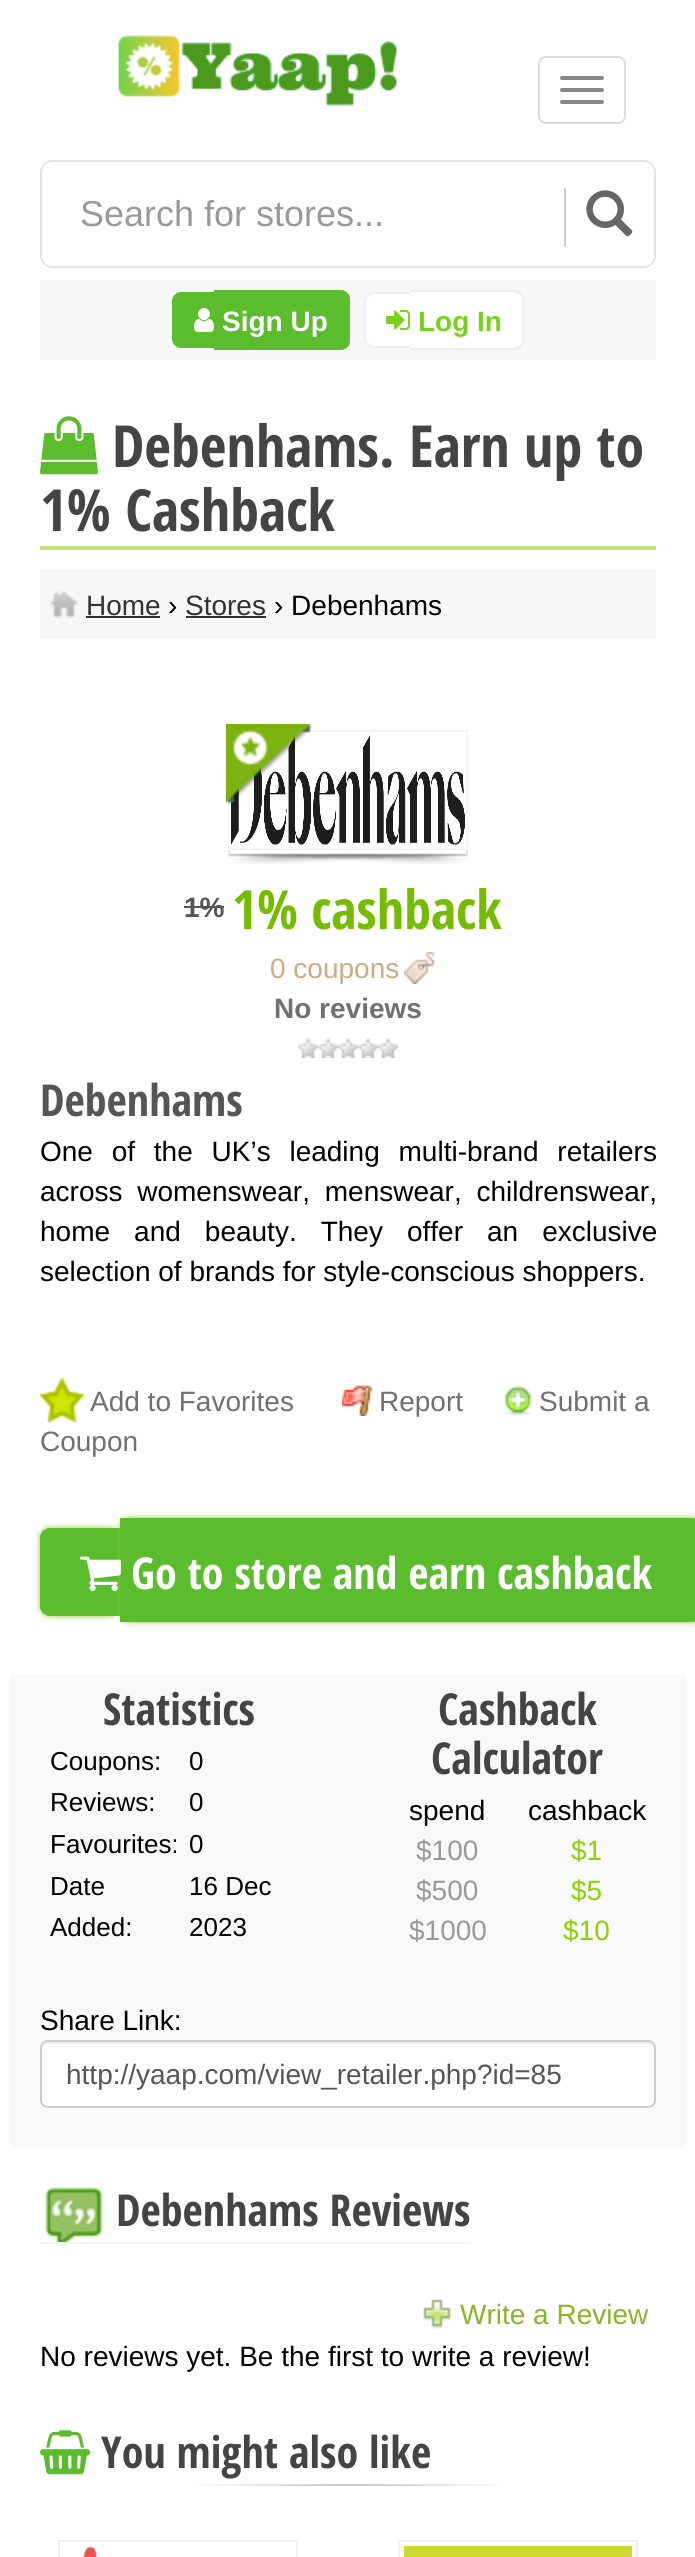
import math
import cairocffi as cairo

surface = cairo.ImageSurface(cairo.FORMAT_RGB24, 695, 2557)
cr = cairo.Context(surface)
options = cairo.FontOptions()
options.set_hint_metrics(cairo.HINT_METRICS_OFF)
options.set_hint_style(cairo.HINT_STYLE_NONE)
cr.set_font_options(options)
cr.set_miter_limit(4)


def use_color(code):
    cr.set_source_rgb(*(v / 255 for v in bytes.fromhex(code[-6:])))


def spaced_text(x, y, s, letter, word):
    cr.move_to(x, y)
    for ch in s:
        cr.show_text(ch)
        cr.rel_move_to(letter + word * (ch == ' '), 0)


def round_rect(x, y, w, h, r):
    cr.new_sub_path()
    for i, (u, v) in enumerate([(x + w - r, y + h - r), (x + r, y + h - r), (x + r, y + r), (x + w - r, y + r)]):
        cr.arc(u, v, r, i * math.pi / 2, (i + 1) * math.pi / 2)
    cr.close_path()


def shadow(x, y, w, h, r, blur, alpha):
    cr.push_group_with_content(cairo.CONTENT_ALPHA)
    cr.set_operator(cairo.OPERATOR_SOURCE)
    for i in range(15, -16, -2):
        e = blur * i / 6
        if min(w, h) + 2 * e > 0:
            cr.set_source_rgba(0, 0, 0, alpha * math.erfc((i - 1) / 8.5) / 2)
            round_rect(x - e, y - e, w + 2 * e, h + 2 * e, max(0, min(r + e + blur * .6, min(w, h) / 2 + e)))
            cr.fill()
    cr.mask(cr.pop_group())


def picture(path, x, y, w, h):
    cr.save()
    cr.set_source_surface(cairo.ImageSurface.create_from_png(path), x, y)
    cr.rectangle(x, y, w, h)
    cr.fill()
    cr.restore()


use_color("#ffffff")
cr.paint()
round_rect(539, 57, 86, 66, 7)
use_color("#dddddd")
cr.stroke()
use_color("#888888")
round_rect(560, 76, 44, 4, 2)
cr.fill()
round_rect(560, 88, 44, 4, 2)
cr.fill()
round_rect(560, 100, 44, 4, 2)
cr.fill()
picture("img1.png", 118, 35, 279, 71)
round_rect(41, 161, 614, 106, 11)
use_color("#e4e4e4")
cr.stroke()
cr.select_font_face("Liberation Sans")
cr.set_font_size(36)
use_color("#999999")
cr.move_to(80, 226)
cr.show_text("Search for stores...")
use_color("#cccccc")
cr.rectangle(564, 188, 2, 58)
cr.fill()
picture("img2.png", 586, 190, 47, 47)
use_color("#f7f7f7")
cr.rectangle(40, 280, 616, 80)
cr.fill()
use_color("#5bbc2e")
cr.new_path()
cr.move_to(182, 292)
cr.line_to(214, 292)
cr.line_to(214, 348)
cr.line_to(182, 348)
cr.curve_to(176.5, 348, 172, 343.5, 172, 338)
cr.line_to(172, 302)
cr.curve_to(172, 296.5, 176.5, 292, 182, 292)
cr.close_path()
cr.fill()
cr.set_fill_rule(cairo.FILL_RULE_EVEN_ODD)
cr.new_path()
cr.move_to(182, 292)
cr.line_to(214, 292)
cr.line_to(214, 348)
cr.line_to(182, 348)
cr.curve_to(176, 348, 172, 344, 172, 338)
cr.line_to(172, 302)
cr.curve_to(172, 296, 176, 292, 182, 292)
cr.close_path()
cr.move_to(182, 294)
cr.line_to(214, 294)
cr.line_to(214, 346)
cr.line_to(182, 346)
cr.curve_to(178, 346, 174, 342, 174, 338)
cr.line_to(174, 302)
cr.curve_to(174, 298, 178, 294, 182, 294)
cr.close_path()
cr.fill()
cr.new_path()
cr.move_to(214, 290)
cr.line_to(340, 290)
cr.curve_to(345.5, 290, 350, 294.5, 350, 300)
cr.line_to(350, 340)
cr.curve_to(350, 345.5, 345.5, 350, 340, 350)
cr.line_to(214, 350)
cr.close_path()
cr.fill()
cr.new_path()
cr.move_to(214, 290)
cr.line_to(340, 290)
cr.curve_to(346, 290, 350, 294, 350, 300)
cr.line_to(350, 340)
cr.curve_to(350, 346, 346, 350, 340, 350)
cr.line_to(214, 350)
cr.close_path()
cr.move_to(214, 292)
cr.line_to(340, 292)
cr.curve_to(344, 292, 348, 296, 348, 300)
cr.line_to(348, 340)
cr.curve_to(348, 344, 344, 348, 340, 348)
cr.line_to(214, 348)
cr.close_path()
cr.fill()
picture("img3.png", 194, 308, 20, 24)
cr.select_font_face("Liberation Sans", cairo.FONT_SLANT_NORMAL, cairo.FONT_WEIGHT_BOLD)
cr.set_font_size(28)
use_color("#ffffff")
cr.move_to(222, 331)
cr.show_text("Sign Up")
cr.new_path()
cr.move_to(374, 292)
cr.line_to(410, 292)
cr.line_to(410, 348)
cr.line_to(374, 348)
cr.curve_to(368.5, 348, 364, 343.5, 364, 338)
cr.line_to(364, 302)
cr.curve_to(364, 296.5, 368.5, 292, 374, 292)
cr.close_path()
cr.fill()
use_color("#eeeeee")
cr.new_path()
cr.move_to(374, 292)
cr.line_to(410, 292)
cr.line_to(410, 348)
cr.line_to(374, 348)
cr.curve_to(368, 348, 364, 344, 364, 338)
cr.line_to(364, 302)
cr.curve_to(364, 296, 368, 292, 374, 292)
cr.close_path()
cr.move_to(374, 294)
cr.line_to(410, 294)
cr.line_to(410, 346)
cr.line_to(374, 346)
cr.curve_to(370, 346, 366, 342, 366, 338)
cr.line_to(366, 302)
cr.curve_to(366, 298, 370, 294, 374, 294)
cr.close_path()
cr.fill()
use_color("#ffffff")
cr.new_path()
cr.move_to(410, 290)
cr.line_to(514, 290)
cr.curve_to(519.5, 290, 524, 294.5, 524, 300)
cr.line_to(524, 340)
cr.curve_to(524, 345.5, 519.5, 350, 514, 350)
cr.line_to(410, 350)
cr.close_path()
cr.fill()
use_color("#eeeeee")
cr.new_path()
cr.move_to(410, 290)
cr.line_to(514, 290)
cr.curve_to(520, 290, 524, 294, 524, 300)
cr.line_to(524, 340)
cr.curve_to(524, 346, 520, 350, 514, 350)
cr.line_to(410, 350)
cr.close_path()
cr.move_to(410, 292)
cr.line_to(514, 292)
cr.curve_to(518, 292, 522, 296, 522, 300)
cr.line_to(522, 340)
cr.curve_to(522, 344, 518, 348, 514, 348)
cr.line_to(410, 348)
cr.close_path()
cr.fill()
picture("img4.png", 386, 310, 24, 20)
use_color("#79d21a")
cr.move_to(418, 331)
cr.show_text("Log In")
use_color("#c2e280")
cr.rectangle(40, 546, 616, 4)
cr.fill()
picture("img5.png", 40, 416, 58, 59)
cr.select_font_face("Open Sans Condensed", cairo.FONT_SLANT_NORMAL, cairo.FONT_WEIGHT_BOLD)
cr.set_font_size(58)
use_color("#444444")
cr.move_to(112, 467)
cr.show_text("Debenhams. Earn up to")
cr.move_to(40, 531)
cr.show_text("1% Cashback")
use_color("#f7f7f7")
cr.rectangle(40, 570, 616, 68)
cr.fill()
picture("img6.png", 50, 591, 28, 27)
cr.select_font_face("Liberation Sans")
cr.set_font_size(28)
use_color("#333333")
cr.move_to(86, 615)
cr.show_text("Home")
cr.rectangle(86, 616, 74, 2)
cr.fill()
use_color("#000000")
cr.move_to(168, 615)
cr.show_text("›")
use_color("#333333")
cr.move_to(185, 615)
cr.show_text("Stores")
cr.rectangle(186, 616, 80, 2)
cr.fill()
use_color("#000000")
cr.move_to(274, 615)
cr.show_text("› Debenhams")
cr.rectangle(229, 731, 238, 118)
use_color("#f5f5f5")
cr.stroke()
picture("img9.png", 230, 732, 236, 116)
picture("img7.png", 226, 724, 86, 82)
picture("img8.png", 228, 850, 240, 14)
cr.select_font_face("Liberation Sans", cairo.FONT_SLANT_NORMAL, cairo.FONT_WEIGHT_BOLD)
use_color("#555555")
cr.move_to(184, 917)
cr.show_text("1%")
cr.rectangle(184, 906, 40, 2)
cr.fill()
cr.select_font_face("Open Sans Condensed", cairo.FONT_SLANT_NORMAL, cairo.FONT_WEIGHT_BOLD)
cr.set_font_size(54)
use_color("#74bc00")
cr.move_to(232, 929)
cr.show_text("1% cashback")
cr.select_font_face("Liberation Sans")
cr.set_font_size(28)
use_color("#d1a981")
cr.move_to(270, 978)
cr.show_text("0 coupons")
picture("img10.png", 404, 952, 31, 32)
cr.select_font_face("Liberation Sans", cairo.FONT_SLANT_NORMAL, cairo.FONT_WEIGHT_BOLD)
use_color("#707070")
cr.move_to(274, 1018)
cr.show_text("No reviews")
picture("img11.png", 298, 1038, 100, 20)
cr.select_font_face("Open Sans Condensed", cairo.FONT_SLANT_NORMAL, cairo.FONT_WEIGHT_BOLD)
cr.set_font_size(44)
use_color("#555555")
cr.move_to(40, 1116)
cr.show_text("Debenhams")
cr.select_font_face("Liberation Sans")
cr.set_font_size(28)
use_color("#000000")
spaced_text(40, 1161, "One of the UK’s leading multi-brand retailers", 0, 11)
spaced_text(40, 1201, "across womenswear, menswear, childrenswear,", 0, 7)
spaced_text(40, 1241, "home and beauty. They offer an exclusive", 0, 16.25)
cr.move_to(40, 1281)
cr.show_text("selection of brands for style-conscious shoppers.")
picture("img12.png", 40, 1378, 44, 44)
use_color("#707070")
cr.move_to(90, 1411)
cr.show_text("Add to Favorites")
picture("img13.png", 342, 1385, 31, 31)
cr.move_to(379, 1411)
cr.show_text("Report")
picture("img14.png", 503, 1385, 30, 31)
cr.move_to(539, 1411)
cr.show_text("Submit a")
cr.move_to(40, 1451)
cr.show_text("Coupon")
use_color("#91c42d")
shadow(40, 1528, 80, 88, 10, 3, 1)
use_color("#5bbc2e")
cr.new_path()
cr.move_to(50, 1528)
cr.line_to(120, 1528)
cr.line_to(120, 1616)
cr.line_to(50, 1616)
cr.curve_to(44.5, 1616, 40, 1611.5, 40, 1606)
cr.line_to(40, 1538)
cr.curve_to(40, 1532.5, 44.5, 1528, 50, 1528)
cr.close_path()
cr.fill()
use_color("#91c42d")
shadow(120, 1518, 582, 104, 10, 3, 1)
use_color("#5bbc2e")
cr.new_path()
cr.move_to(120, 1518)
cr.line_to(692, 1518)
cr.curve_to(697.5, 1518, 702, 1522.5, 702, 1528)
cr.line_to(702, 1612)
cr.curve_to(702, 1617.5, 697.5, 1622, 692, 1622)
cr.line_to(120, 1622)
cr.close_path()
cr.fill()
picture("img15.png", 80, 1556, 41, 36)
cr.select_font_face("Open Sans Condensed", cairo.FONT_SLANT_NORMAL, cairo.FONT_WEIGHT_BOLD)
cr.set_font_size(44)
use_color("#ffffff")
cr.move_to(131, 1589)
cr.show_text("Go to store and earn cashback")
use_color("#f9f9f9")
cr.rectangle(10, 1674, 676, 474)
cr.fill()
use_color("#444444")
cr.move_to(103, 1725)
cr.show_text("Statistics")
cr.select_font_face("Liberation Sans")
cr.set_font_size(26)
use_color("#000000")
cr.move_to(50, 1770)
cr.show_text("Coupons:")
cr.move_to(189, 1770)
cr.show_text("0")
cr.move_to(50, 1811)
cr.show_text("Reviews:")
cr.move_to(189, 1811)
cr.show_text("0")
cr.move_to(50, 1853)
cr.show_text("Favourites:")
cr.move_to(189, 1853)
cr.show_text("0")
cr.move_to(50, 1895)
cr.show_text("Date")
cr.move_to(50, 1936)
cr.show_text("Added:")
cr.move_to(189, 1895)
cr.show_text("16 Dec")
cr.move_to(189, 1936)
cr.show_text("2023")
cr.select_font_face("Open Sans Condensed", cairo.FONT_SLANT_NORMAL, cairo.FONT_WEIGHT_BOLD)
cr.set_font_size(44)
use_color("#444444")
cr.move_to(438, 1725)
cr.show_text("Cashback")
cr.move_to(431, 1774)
cr.show_text("Calculator")
cr.select_font_face("Liberation Sans")
cr.set_font_size(28)
use_color("#000000")
cr.move_to(409, 1820)
cr.show_text("spend")
cr.move_to(528, 1820)
cr.show_text("cashback")
use_color("#999999")
cr.move_to(416, 1860)
cr.show_text("$100")
use_color("#8cd102")
cr.move_to(571, 1860)
cr.show_text("$1")
use_color("#999999")
cr.move_to(416, 1900)
cr.show_text("$500")
use_color("#8cd102")
cr.move_to(571, 1900)
cr.show_text("$5")
use_color("#999999")
cr.move_to(409, 1940)
cr.show_text("$1000")
use_color("#8cd102")
cr.move_to(563, 1940)
cr.show_text("$10")
use_color("#000000")
cr.move_to(40, 2030)
cr.show_text("Share Link:")
use_color("#ffffff")
round_rect(40, 2040, 616, 68, 8)
cr.fill()
use_color("#ececec")
cr.set_fill_rule(cairo.FILL_RULE_WINDING)
cr.new_path()
cr.move_to(48, 2044)
cr.line_to(648, 2044)
cr.curve_to(651, 2044, 654, 2047, 654, 2050)
cr.line_to(654, 2048)
cr.curve_to(654, 2045, 651, 2042, 648, 2042)
cr.line_to(48, 2042)
cr.curve_to(45, 2042, 42, 2045, 42, 2048)
cr.line_to(42, 2050)
cr.curve_to(42, 2047, 45, 2044, 48, 2044)
cr.close_path()
cr.fill()
round_rect(41, 2041, 614, 66, 7)
use_color("#cccccc")
cr.stroke()
use_color("#555555")
cr.move_to(66, 2084)
cr.show_text("http://yaap.com/view_retailer.php?id=85")
picture("img16.png", 45, 2187, 58, 55)
use_color("#f5f5f5")
cr.rectangle(40, 2242, 430, 2)
cr.fill()
cr.select_font_face("Open Sans Condensed", cairo.FONT_SLANT_NORMAL, cairo.FONT_WEIGHT_BOLD)
cr.set_font_size(44)
use_color("#444444")
cr.move_to(116, 2226)
cr.show_text("Debenhams Reviews")
picture("img17.png", 423, 2299, 28, 30)
cr.select_font_face("Liberation Sans")
cr.set_font_size(28)
use_color("#88b527")
cr.move_to(460, 2324)
cr.show_text("Write a Review")
use_color("#000000")
cr.move_to(40, 2366)
cr.show_text("No reviews yet. Be the first to write a review!")
picture("img18.png", 40, 2430, 51, 45)
cr.select_font_face("Open Sans Condensed", cairo.FONT_SLANT_NORMAL, cairo.FONT_WEIGHT_BOLD)
cr.set_font_size(44)
use_color("#444444")
cr.move_to(101, 2468)
cr.show_text("You might also like")
picture("img19.png", 199, 2484, 304, 2)
cr.rectangle(59, 2541, 238, 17)
use_color("#efefef")
cr.stroke()
picture("img20.png", 83, 2546, 14, 11)
cr.rectangle(399, 2541, 238, 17)
cr.stroke()
use_color("#cdda32")
cr.rectangle(404, 2546, 228, 11)
cr.fill()
surface.write_to_png("result.png")
